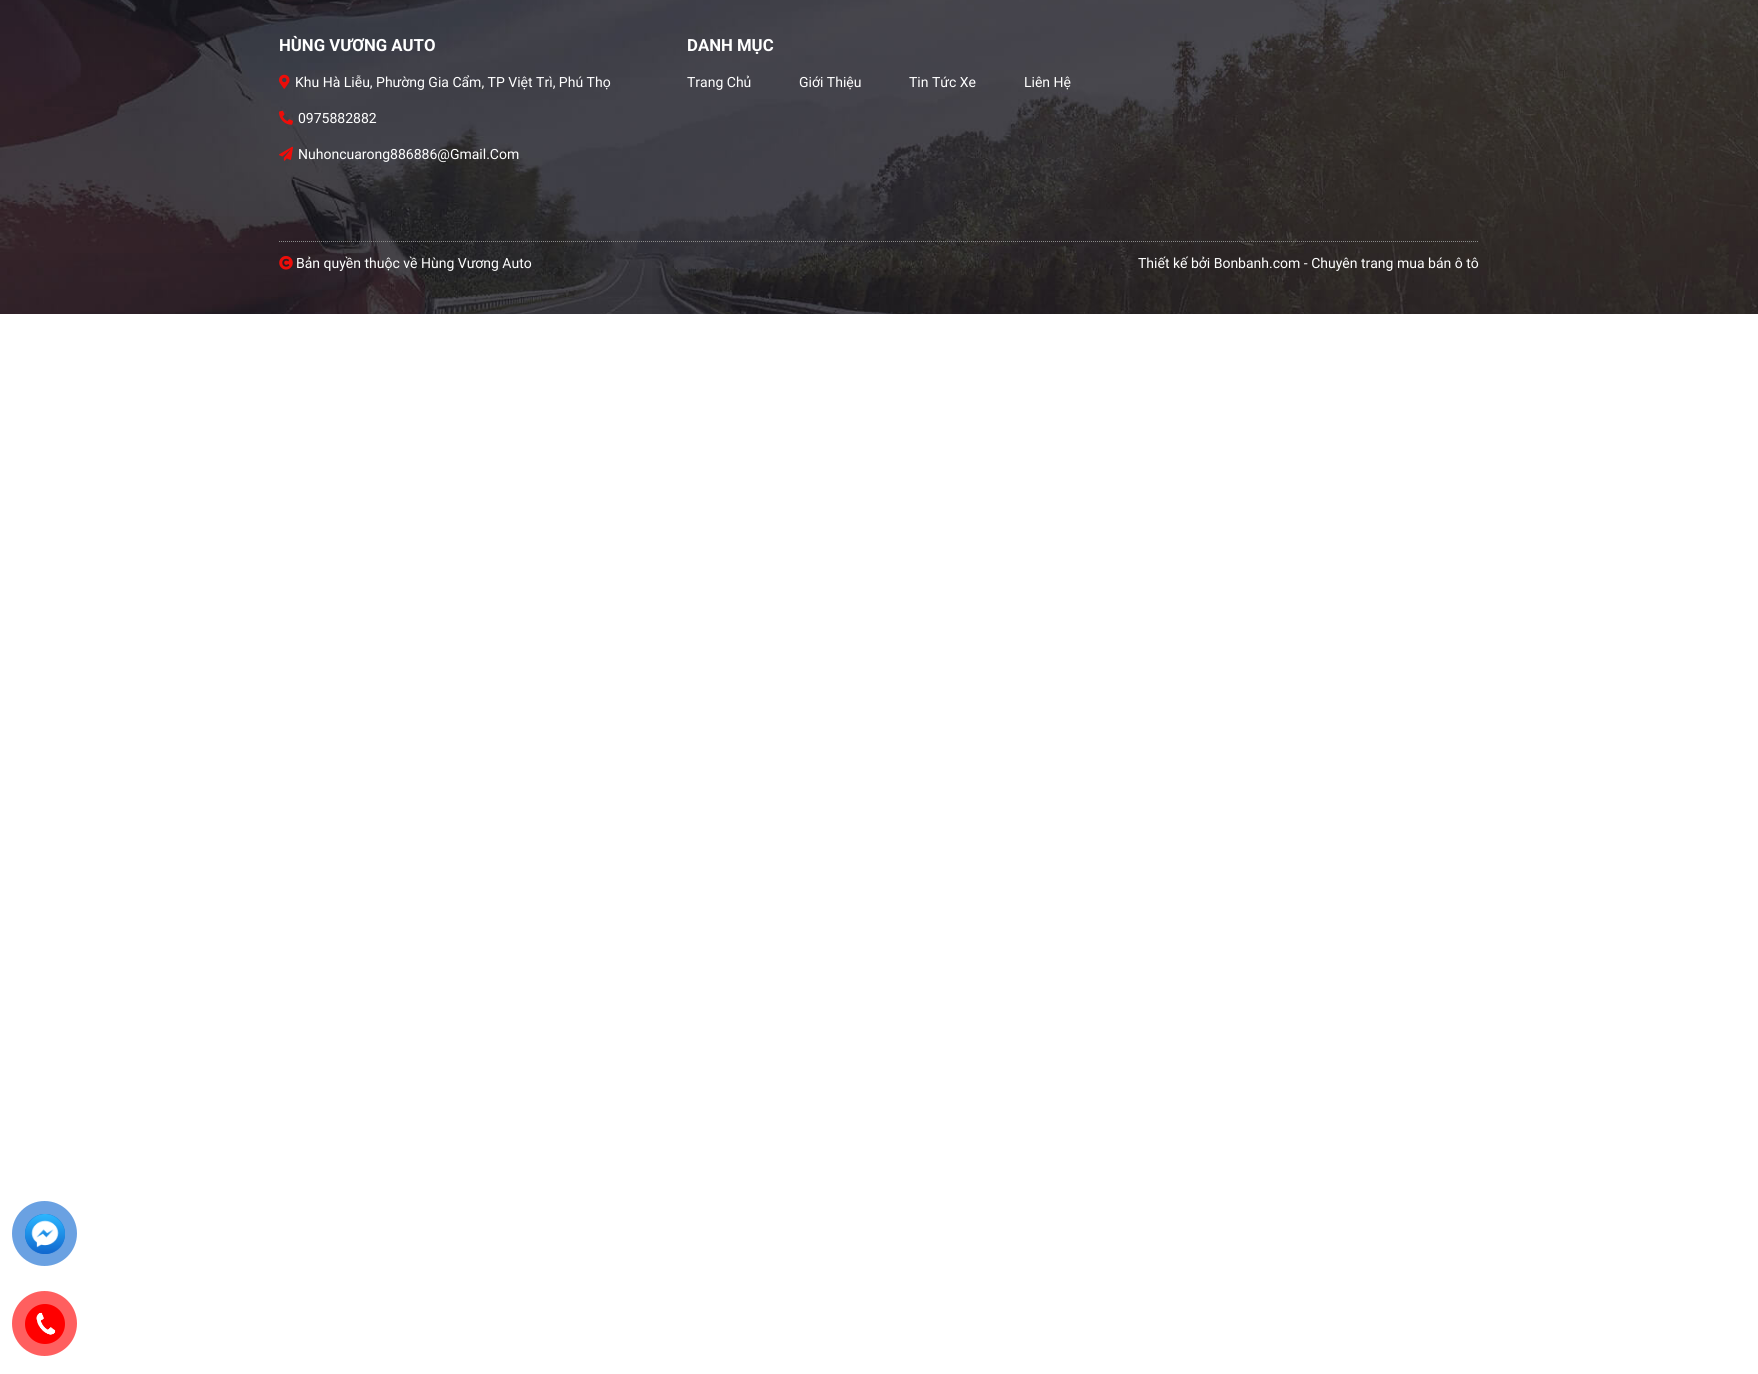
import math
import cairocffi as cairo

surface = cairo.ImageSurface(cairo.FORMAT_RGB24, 1758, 1374)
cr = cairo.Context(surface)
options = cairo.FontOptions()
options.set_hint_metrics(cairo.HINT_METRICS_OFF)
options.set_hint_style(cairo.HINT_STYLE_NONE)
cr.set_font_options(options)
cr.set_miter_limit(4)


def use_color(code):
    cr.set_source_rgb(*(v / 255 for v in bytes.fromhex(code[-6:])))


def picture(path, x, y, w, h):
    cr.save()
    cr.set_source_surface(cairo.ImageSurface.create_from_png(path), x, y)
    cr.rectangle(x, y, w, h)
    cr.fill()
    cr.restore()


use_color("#ffffff")
cr.paint()
picture("img1.png", 0, 0, 1758, 314)
cr.select_font_face("Roboto", cairo.FONT_SLANT_NORMAL, cairo.FONT_WEIGHT_BOLD)
cr.set_font_size(16.75)
use_color("#ffffff")
cr.move_to(279, 51)
cr.show_text("HÙNG VƯƠNG AUTO")
picture("img2.png", 279, 74, 11, 15)
cr.select_font_face("Roboto")
cr.set_font_size(14)
cr.move_to(295, 87)
cr.show_text("Khu Hà Liễu, Phường Gia Cẩm, TP Việt Trì, Phú Thọ")
picture("img3.png", 279, 110, 14, 15)
cr.move_to(298, 123)
cr.show_text("0975882882")
picture("img4.png", 279, 146, 14, 15)
cr.move_to(298, 159)
cr.show_text("Nuhoncuarong886886@Gmail.Com")
cr.select_font_face("Roboto", cairo.FONT_SLANT_NORMAL, cairo.FONT_WEIGHT_BOLD)
cr.set_font_size(16.75)
cr.move_to(687, 51)
cr.show_text("DANH MỤC")
cr.select_font_face("Roboto")
cr.set_font_size(14)
cr.move_to(687, 87)
cr.show_text("Trang Chủ")
cr.move_to(799, 87)
cr.show_text("Giới Thiệu")
cr.move_to(909, 87)
cr.show_text("Tin Tức Xe")
cr.move_to(1024, 87)
cr.show_text("Liên Hệ")
cr.new_path()
cr.move_to(279, 241.5)
cr.line_to(1479, 241.5)
use_color("#8b8b8b")
cr.set_line_width(1)
cr.set_dash([1, 1])
cr.stroke()
picture("img5.png", 279, 256, 14, 14)
use_color("#ffffff")
cr.move_to(296, 268)
cr.show_text("Bản quyền thuộc về Hùng Vương Auto")
cr.move_to(1138, 268)
cr.show_text("Thiết kế bởi Bonbanh.com - Chuyên trang mua bán ô tô")
use_color("#6aa1e2")
cr.new_path()
cr.arc(44.5, 1233.5, 32.5, 0, 2 * math.pi)
cr.fill()
use_color("#126bd1")
cr.arc(45, 1234, 20, 0, 2 * math.pi)
cr.fill()
picture("img6.png", 25, 1214, 40, 40)
use_color("#ff5f5f")
cr.arc(44.5, 1323.5, 32.5, 0, 2 * math.pi)
cr.fill()
use_color("#ff0000")
cr.arc(45, 1324, 20, 0, 2 * math.pi)
cr.fill()
picture("img7.png", 36, 1312, 20, 23)
surface.write_to_png("result.png")
